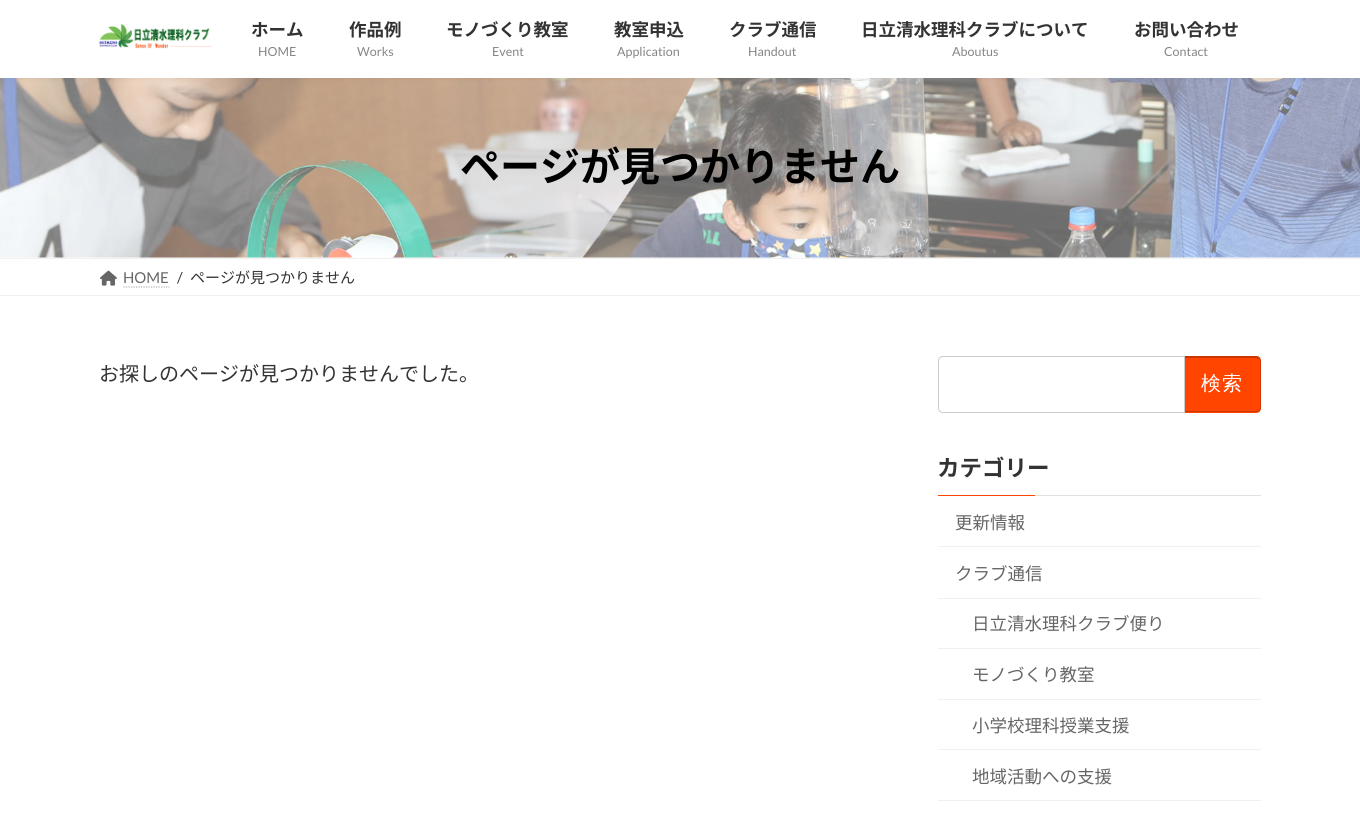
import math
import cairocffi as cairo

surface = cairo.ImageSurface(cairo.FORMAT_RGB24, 1360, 817)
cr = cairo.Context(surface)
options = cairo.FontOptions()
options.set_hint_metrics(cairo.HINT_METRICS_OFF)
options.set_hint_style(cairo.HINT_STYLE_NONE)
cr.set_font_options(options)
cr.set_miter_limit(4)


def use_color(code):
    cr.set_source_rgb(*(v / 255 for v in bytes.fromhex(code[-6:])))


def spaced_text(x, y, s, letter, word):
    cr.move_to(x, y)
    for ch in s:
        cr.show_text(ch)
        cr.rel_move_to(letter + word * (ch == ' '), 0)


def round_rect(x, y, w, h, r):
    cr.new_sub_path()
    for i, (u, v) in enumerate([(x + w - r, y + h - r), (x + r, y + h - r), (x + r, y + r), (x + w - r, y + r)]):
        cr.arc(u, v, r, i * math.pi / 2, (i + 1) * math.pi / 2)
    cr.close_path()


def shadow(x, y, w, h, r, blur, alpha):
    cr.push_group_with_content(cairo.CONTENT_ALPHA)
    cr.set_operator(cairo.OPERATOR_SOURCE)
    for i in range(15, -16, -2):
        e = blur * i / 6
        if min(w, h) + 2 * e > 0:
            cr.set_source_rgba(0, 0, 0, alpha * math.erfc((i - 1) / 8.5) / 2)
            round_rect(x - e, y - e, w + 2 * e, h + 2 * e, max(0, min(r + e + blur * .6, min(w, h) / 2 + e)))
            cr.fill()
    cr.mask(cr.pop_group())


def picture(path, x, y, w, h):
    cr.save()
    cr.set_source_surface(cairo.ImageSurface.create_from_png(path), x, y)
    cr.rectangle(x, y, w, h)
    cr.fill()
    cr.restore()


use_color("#ffffff")
cr.paint()
picture("img2.png", 0, 78, 1360, 180)
use_color("#000000")
shadow(0, 1, 1360, 78, 0, 2, 0.05)
use_color("#ffffff")
cr.rectangle(0, 0, 1360, 78)
cr.fill()
picture("img1.png", 99, 23, 114, 26)
cr.select_font_face("Noto Sans JP", cairo.FONT_SLANT_NORMAL, cairo.FONT_WEIGHT_BOLD)
cr.set_font_size(17.5)
use_color("#333333")
cr.move_to(251, 36)
cr.show_text("ホーム")
cr.select_font_face("Lato")
cr.set_font_size(12.5)
use_color("#858585")
cr.move_to(258, 56)
cr.show_text("HOME")
cr.select_font_face("Noto Sans JP", cairo.FONT_SLANT_NORMAL, cairo.FONT_WEIGHT_BOLD)
cr.set_font_size(17.5)
use_color("#333333")
cr.move_to(349, 36)
cr.show_text("作品例")
cr.select_font_face("Lato")
cr.set_font_size(12.5)
use_color("#858585")
cr.move_to(357, 56)
cr.show_text("Works")
cr.select_font_face("Noto Sans JP", cairo.FONT_SLANT_NORMAL, cairo.FONT_WEIGHT_BOLD)
cr.set_font_size(17.5)
use_color("#333333")
cr.move_to(446, 36)
cr.show_text("モノづくり教室")
cr.select_font_face("Lato")
cr.set_font_size(12.5)
use_color("#858585")
cr.move_to(492, 56)
cr.show_text("Event")
cr.select_font_face("Noto Sans JP", cairo.FONT_SLANT_NORMAL, cairo.FONT_WEIGHT_BOLD)
cr.set_font_size(17.5)
use_color("#333333")
cr.move_to(614, 36)
cr.show_text("教室申込")
cr.select_font_face("Lato")
cr.set_font_size(12.5)
use_color("#858585")
cr.move_to(617, 56)
cr.show_text("Application")
cr.select_font_face("Noto Sans JP", cairo.FONT_SLANT_NORMAL, cairo.FONT_WEIGHT_BOLD)
cr.set_font_size(17.5)
use_color("#333333")
cr.move_to(729, 36)
cr.show_text("クラブ通信")
cr.select_font_face("Lato")
cr.set_font_size(12.5)
use_color("#858585")
cr.move_to(748, 56)
cr.show_text("Handout")
cr.select_font_face("Noto Sans JP", cairo.FONT_SLANT_NORMAL, cairo.FONT_WEIGHT_BOLD)
cr.set_font_size(17.5)
use_color("#333333")
cr.move_to(861, 36)
cr.show_text("日立清水理科クラブについて")
cr.select_font_face("Lato")
cr.set_font_size(12.5)
use_color("#858585")
cr.move_to(952, 56)
cr.show_text("Aboutus")
cr.select_font_face("Noto Sans JP", cairo.FONT_SLANT_NORMAL, cairo.FONT_WEIGHT_BOLD)
cr.set_font_size(17.5)
use_color("#333333")
cr.move_to(1134, 36)
cr.show_text("お問い合わせ")
cr.select_font_face("Lato")
cr.set_font_size(12.5)
use_color("#858585")
cr.move_to(1164, 56)
cr.show_text("Contact")
cr.select_font_face("Noto Sans JP", cairo.FONT_SLANT_NORMAL, cairo.FONT_WEIGHT_BOLD)
cr.set_font_size(40)
use_color("#000000")
cr.move_to(460, 181)
cr.show_text("ページが見つかりません")
use_color("#f0f0f0")
cr.rectangle(0, 258, 1360, 1)
cr.fill()
cr.rectangle(0, 295, 1360, 1)
cr.fill()
picture("img3.png", 100, 270, 17, 16)
cr.select_font_face("Lato")
cr.set_font_size(15)
use_color("#666666")
cr.move_to(123, 283)
cr.show_text("HOME")
cr.new_path()
cr.move_to(123.5, 287)
cr.line_to(169.5, 287)
use_color("#b3b3b3")
cr.set_line_width(1.2)
cr.set_dash([1.25, 1.25])
cr.stroke()
use_color("#333333")
cr.move_to(177, 283)
cr.show_text("/")
cr.select_font_face("Noto Sans JP")
cr.move_to(190, 283)
cr.show_text("ページが見つかりません")
cr.set_font_size(20)
cr.move_to(99, 381)
cr.show_text("お探しのページが見つかりませんでした。")
cr.new_path()
cr.move_to(943, 356.5)
cr.line_to(1184.5, 356.5)
cr.line_to(1184.5, 412.5)
cr.line_to(943, 412.5)
cr.curve_to(940.5, 412.5, 938.5, 410.5, 938.5, 408)
cr.line_to(938.5, 361)
cr.curve_to(938.5, 358.5, 940.5, 356.5, 943, 356.5)
cr.close_path()
use_color("#cccccc")
cr.set_line_width(1)
cr.set_dash([])
cr.stroke()
use_color("#ff4500")
cr.new_path()
cr.move_to(1185, 356)
cr.line_to(1256, 356)
cr.curve_to(1259, 356, 1261, 358, 1261, 361)
cr.line_to(1261, 408)
cr.curve_to(1261, 411, 1259, 413, 1256, 413)
cr.line_to(1185, 413)
cr.close_path()
cr.fill()
cr.set_source_rgba(0, 0, 0, 0.2)
cr.set_fill_rule(cairo.FILL_RULE_EVEN_ODD)
cr.new_path()
cr.move_to(1185, 356)
cr.line_to(1256, 356)
cr.curve_to(1259, 356, 1261, 358, 1261, 361)
cr.line_to(1261, 408)
cr.curve_to(1261, 410, 1259, 412, 1256, 412)
cr.line_to(1185, 412)
cr.close_path()
cr.move_to(1185, 358)
cr.line_to(1256, 358)
cr.curve_to(1258, 358, 1260, 359, 1260, 361)
cr.line_to(1260, 408)
cr.curve_to(1260, 410, 1258, 411, 1256, 411)
cr.line_to(1185, 411)
cr.close_path()
cr.fill()
cr.select_font_face("WenQuanYi Zen Hei Medium")
use_color("#ffffff")
spaced_text(1201, 390, "検索", 1, 0)
use_color("#e0e0e0")
cr.rectangle(1035, 495, 226, 1)
cr.fill()
cr.select_font_face("Noto Sans JP", cairo.FONT_SLANT_NORMAL, cairo.FONT_WEIGHT_BOLD)
cr.set_font_size(22.5)
use_color("#333333")
cr.move_to(937, 476)
cr.show_text("カテゴリー")
use_color("#ff4500")
cr.rectangle(938, 495, 97, 1)
cr.fill()
use_color("#f0f0f0")
cr.rectangle(938, 546, 323, 1)
cr.fill()
cr.select_font_face("Noto Sans JP")
cr.set_font_size(17.5)
use_color("#666666")
cr.move_to(955, 529)
cr.show_text("更新情報")
use_color("#f0f0f0")
cr.rectangle(938, 598, 323, 1)
cr.fill()
use_color("#666666")
cr.move_to(955, 580)
cr.show_text("クラブ通信")
use_color("#f0f0f0")
cr.rectangle(938, 648, 323, 1)
cr.fill()
use_color("#666666")
cr.move_to(972, 630)
cr.show_text("日立清水理科クラブ便り")
use_color("#f0f0f0")
cr.rectangle(938, 699, 323, 1)
cr.fill()
use_color("#666666")
cr.move_to(972, 681)
cr.show_text("モノづくり教室")
use_color("#f0f0f0")
cr.rectangle(938, 749, 323, 1)
cr.fill()
use_color("#666666")
cr.move_to(972, 732)
cr.show_text("小学校理科授業支援")
use_color("#f0f0f0")
cr.rectangle(938, 800, 323, 1)
cr.fill()
use_color("#666666")
cr.move_to(972, 783)
cr.show_text("地域活動への支援")
surface.write_to_png("result.png")
